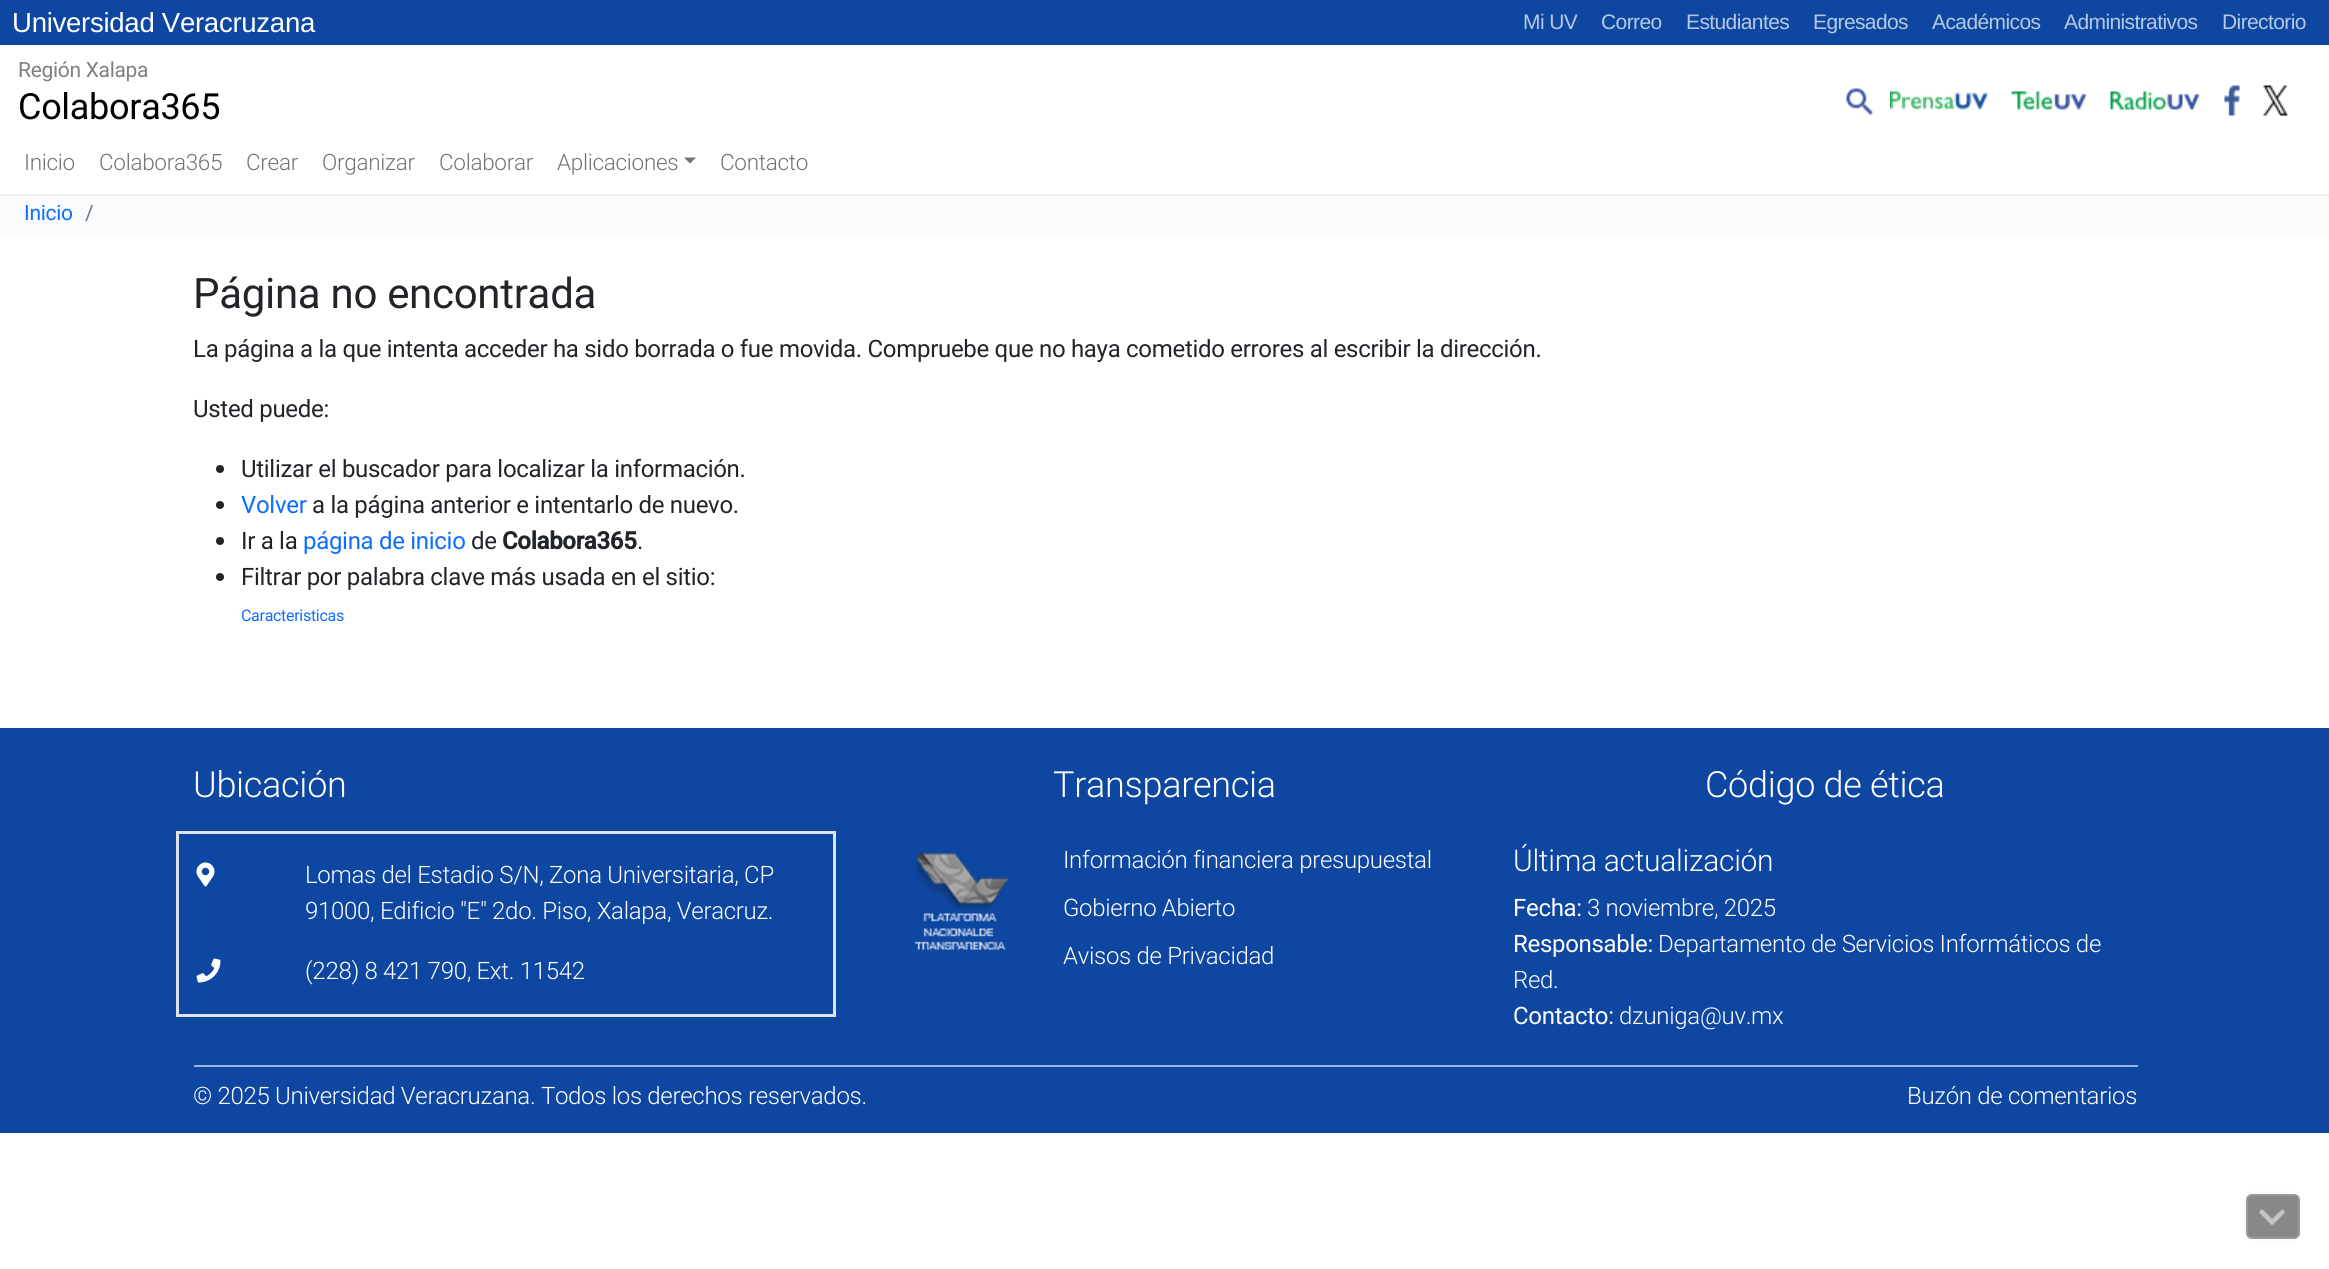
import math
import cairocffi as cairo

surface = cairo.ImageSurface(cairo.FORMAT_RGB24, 2329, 1269)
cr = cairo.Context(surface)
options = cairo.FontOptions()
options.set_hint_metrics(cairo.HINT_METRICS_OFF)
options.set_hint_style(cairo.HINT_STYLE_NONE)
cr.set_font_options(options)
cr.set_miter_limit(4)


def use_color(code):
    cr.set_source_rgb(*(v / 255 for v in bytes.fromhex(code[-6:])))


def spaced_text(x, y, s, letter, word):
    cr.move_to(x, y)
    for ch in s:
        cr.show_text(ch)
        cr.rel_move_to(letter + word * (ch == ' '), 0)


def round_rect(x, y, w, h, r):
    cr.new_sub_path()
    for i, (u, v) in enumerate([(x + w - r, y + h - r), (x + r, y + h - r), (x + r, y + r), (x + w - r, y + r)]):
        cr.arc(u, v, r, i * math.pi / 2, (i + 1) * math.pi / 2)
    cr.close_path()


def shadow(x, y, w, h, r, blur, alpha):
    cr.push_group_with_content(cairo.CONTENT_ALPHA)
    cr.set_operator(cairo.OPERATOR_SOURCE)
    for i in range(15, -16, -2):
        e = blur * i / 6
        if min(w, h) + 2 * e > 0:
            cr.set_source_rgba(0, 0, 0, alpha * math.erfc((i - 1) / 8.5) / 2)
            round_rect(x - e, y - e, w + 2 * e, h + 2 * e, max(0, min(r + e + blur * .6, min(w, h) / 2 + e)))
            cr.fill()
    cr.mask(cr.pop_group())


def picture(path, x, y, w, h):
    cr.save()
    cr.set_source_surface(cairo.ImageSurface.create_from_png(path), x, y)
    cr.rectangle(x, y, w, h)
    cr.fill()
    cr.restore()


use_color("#ffffff")
cr.paint()
use_color("#fafbfc")
cr.rectangle(0, 194, 2329, 40)
cr.fill()
use_color("#000000")
shadow(0, 2, 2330, 193, 0, 1, 0.1)
use_color("#0e47a1")
cr.rectangle(0, 0, 2329, 45)
cr.fill()
cr.select_font_face("Liberation Sans")
cr.set_font_size(27.6)
use_color("#ffffff")
spaced_text(12, 32, "Universidad Veracruzana", -0.3, 0)
cr.set_font_size(21)
use_color("#b7c8e3")
spaced_text(1523, 29, "Mi UV", -0.6, 0)
spaced_text(1601, 29, "Correo", -0.6, 0)
spaced_text(1686, 29, "Estudiantes", -0.6, 0)
spaced_text(1813, 29, "Egresados", -0.6, 0)
spaced_text(1932, 29, "Académicos", -0.6, 0)
spaced_text(2064, 29, "Administrativos", -0.6, 0)
spaced_text(2222, 29, "Directorio", -0.6, 0)
use_color("#ffffff")
cr.rectangle(0, 45, 2329, 149)
cr.fill()
cr.select_font_face("Roboto")
use_color("#808080")
spaced_text(18, 77, "Región Xalapa", -0.3, 0)
cr.set_font_size(36)
use_color("#000000")
spaced_text(18, 119, "Colabora365", -0.3, 0)
picture("img1.png", 1846, 87, 28, 29)
picture("img2.png", 1890, 91, 98, 19)
picture("img3.png", 2011, 91, 76, 19)
picture("img4.png", 2110, 91, 90, 19)
picture("img5.png", 2224, 85, 16, 31)
picture("img6.png", 2263, 85, 25, 31)
cr.select_font_face("Roboto Light")
cr.set_font_size(22.5)
use_color("#737373")
spaced_text(24, 170, "Inicio", -0.3, 0)
spaced_text(99, 170, "Colabora365", -0.3, 0)
spaced_text(246, 170, "Crear", -0.3, 0)
spaced_text(322, 170, "Organizar", -0.3, 0)
spaced_text(439, 170, "Colaborar", -0.3, 0)
spaced_text(557, 170, "Aplicaciones", -0.3, 0)
cr.new_path()
cr.move_to(684, 157.5)
cr.line_to(696, 157.5)
cr.line_to(690, 163.5)
cr.close_path()
cr.fill()
spaced_text(720, 170, "Contacto", -0.3, 0)
cr.select_font_face("Roboto")
cr.set_font_size(21)
use_color("#0d6efd")
spaced_text(24, 220, "Inicio", -0.3, 0)
use_color("#6c757d")
spaced_text(85, 220, "/", -0.3, 0)
cr.set_font_size(42)
use_color("#212529")
spaced_text(193, 308, "Página no encontrada", -0.3, 0)
cr.set_font_size(24)
spaced_text(193, 357, "La página a la que intenta acceder ha sido borrada o fue movida. Compruebe que no haya cometido errores al escribir la dirección.", -0.3, 0)
spaced_text(193, 417, "Usted puede:", -0.3, 0)
cr.new_path()
cr.arc(220, 469, 4, 0, 2 * math.pi)
cr.fill()
spaced_text(241, 477, "Utilizar el buscador para localizar la información.", -0.3, 0)
cr.new_path()
cr.arc(220, 505, 4, 0, 2 * math.pi)
cr.fill()
use_color("#0d6efd")
spaced_text(241, 513, "Volver", -0.3, 0)
use_color("#212529")
spaced_text(312, 513, "a la página anterior e intentarlo de nuevo.", -0.3, 0)
cr.new_path()
cr.arc(220, 541, 4, 0, 2 * math.pi)
cr.fill()
spaced_text(241, 549, "Ir a la", -0.3, 0)
use_color("#0d6efd")
spaced_text(303, 549, "página de inicio", -0.3, 0)
use_color("#212529")
spaced_text(471, 549, "de", -0.3, 0)
cr.select_font_face("Roboto", cairo.FONT_SLANT_NORMAL, cairo.FONT_WEIGHT_BOLD)
spaced_text(502, 549, "Colabora365", -0.3, 0)
cr.select_font_face("Roboto")
spaced_text(637, 549, ".", -0.3, 0)
cr.new_path()
cr.arc(220, 577, 4, 0, 2 * math.pi)
cr.fill()
spaced_text(241, 585, "Filtrar por palabra clave más usada en el sitio:", -0.3, 0)
cr.set_font_size(16)
use_color("#0d6efd")
spaced_text(241, 621, "Caracteristicas", -0.3, 0)
use_color("#0e47a1")
cr.rectangle(0, 728, 2329, 405)
cr.fill()
cr.select_font_face("Roboto Light")
cr.set_font_size(36)
use_color("#ffffff")
spaced_text(193, 797, "Ubicación", -0.3, 0)
cr.rectangle(177.5, 832.5, 657, 183)
use_color("#dee2e6")
cr.set_line_width(3)
cr.stroke()
picture("img7.png", 196, 862, 19, 25)
cr.set_font_size(24)
use_color("#ffffff")
spaced_text(305, 883, "Lomas del Estadio S/N, Zona Universitaria, CP", -0.3, 0)
spaced_text(305, 919, "91000, Edificio \"E\" 2do. Piso, Xalapa, Veracruz.", -0.3, 0)
picture("img8.png", 196, 958, 25, 25)
spaced_text(305, 979, "(228) 8 421 790, Ext. 11542", -0.3, 0)
cr.set_font_size(36)
spaced_text(1053, 797, "Transparencia", -0.3, 0)
picture("img9.png", 915, 852, 95, 98)
cr.set_font_size(24)
spaced_text(1063, 868, "Información financiera presupuestal", -0.3, 0)
spaced_text(1063, 916, "Gobierno Abierto", -0.3, 0)
spaced_text(1063, 964, "Avisos de Privacidad", -0.3, 0)
cr.set_font_size(36)
spaced_text(1705, 797, "Código de ética", -0.3, 0)
cr.set_font_size(30)
spaced_text(1513, 871, "Última actualización", -0.3, 0)
cr.select_font_face("Roboto")
cr.set_font_size(24)
spaced_text(1513, 916, "Fecha:", -0.3, 0)
cr.select_font_face("Roboto Light")
spaced_text(1587, 916, "3 noviembre, 2025", -0.3, 0)
cr.select_font_face("Roboto")
spaced_text(1513, 952, "Responsable:", -0.3, 0)
cr.select_font_face("Roboto Light")
spaced_text(1658, 952, "Departamento de Servicios Informáticos de", -0.3, 0)
spaced_text(1513, 988, "Red.", -0.3, 0)
cr.select_font_face("Roboto")
spaced_text(1513, 1024, "Contacto:", -0.3, 0)
cr.select_font_face("Roboto Light")
spaced_text(1619, 1024, "dzuniga@uv.mx", -0.3, 0)
use_color("#9fb5d9")
cr.rectangle(194, 1065, 1944, 2)
cr.fill()
use_color("#ffffff")
spaced_text(193, 1104, "© 2025 Universidad Veracruzana. Todos los derechos reservados.", -0.3, 0)
spaced_text(1907, 1104, "Buzón de comentarios", -0.3, 0)
use_color("#808080")
shadow(2246, 1194, 54, 45, 6, 3, 0.1)
use_color("#888888")
round_rect(2247, 1195, 52, 43, 5)
cr.fill_preserve()
use_color("#999999")
cr.set_line_width(2)
cr.stroke()
picture("img10.png", 2259, 1209, 26, 16)
surface.write_to_png("result.png")
